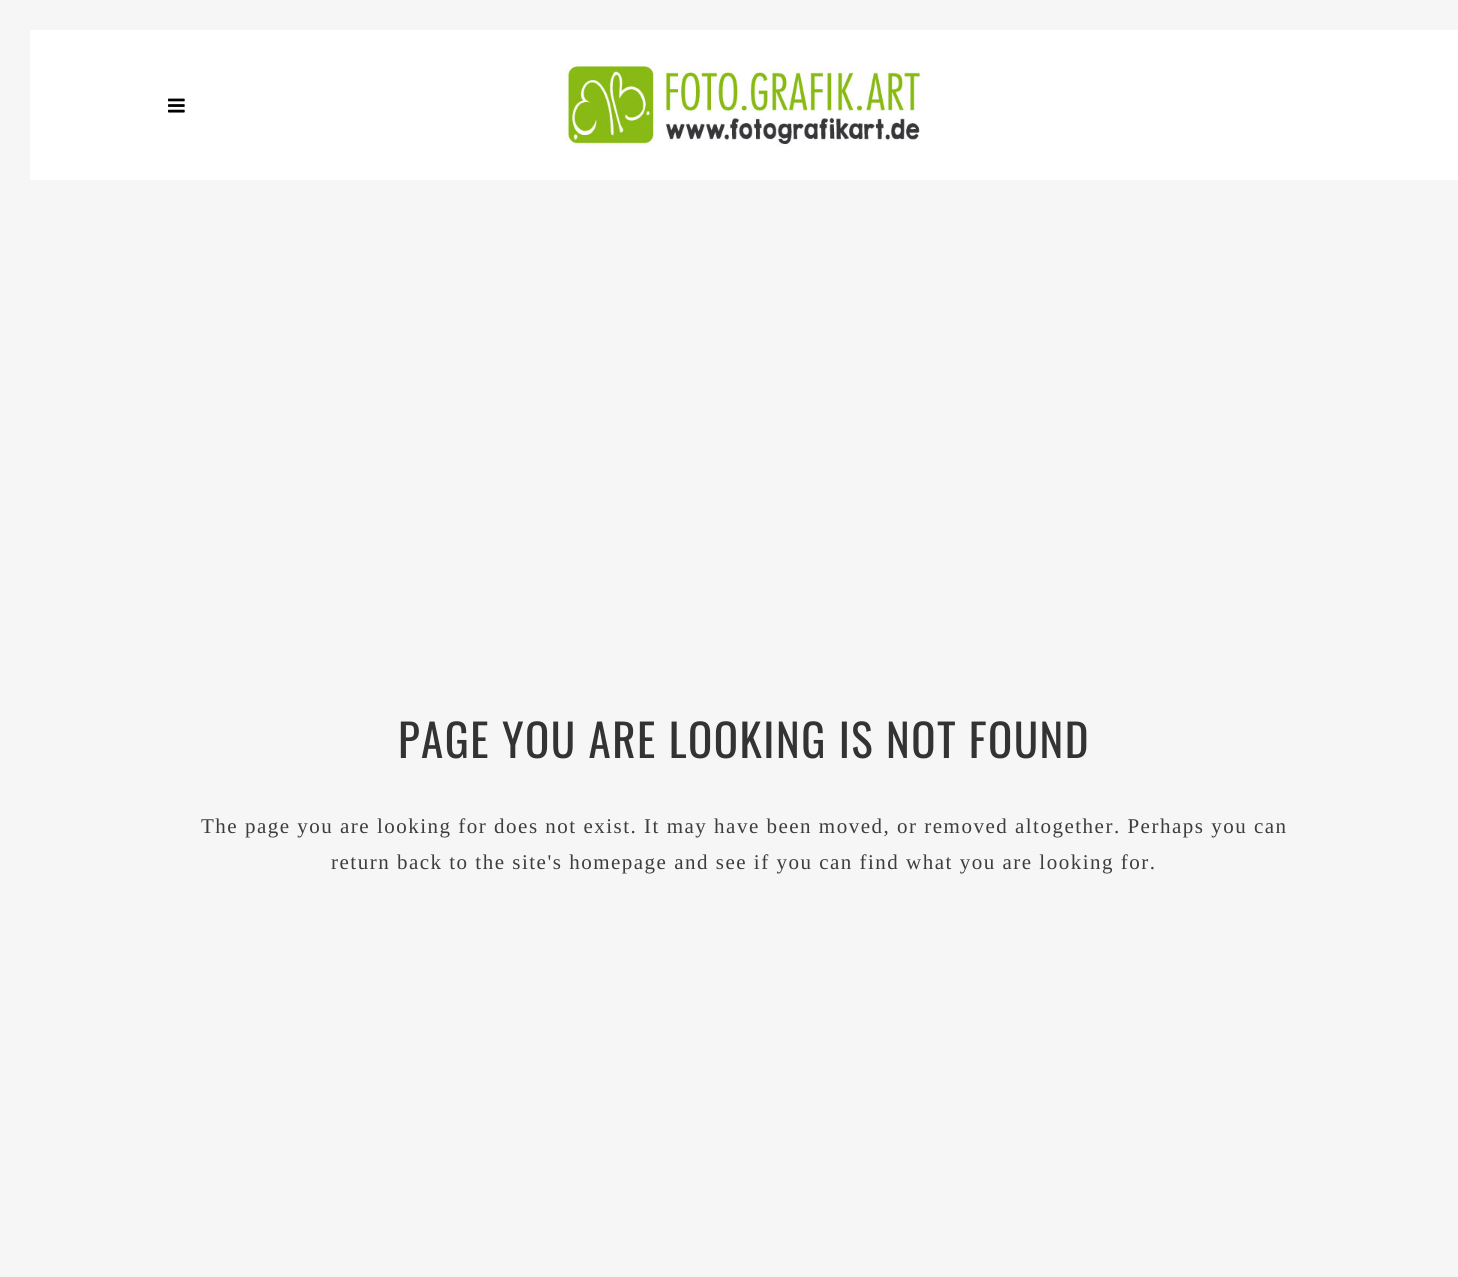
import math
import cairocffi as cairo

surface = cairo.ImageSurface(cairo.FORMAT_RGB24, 1458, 1277)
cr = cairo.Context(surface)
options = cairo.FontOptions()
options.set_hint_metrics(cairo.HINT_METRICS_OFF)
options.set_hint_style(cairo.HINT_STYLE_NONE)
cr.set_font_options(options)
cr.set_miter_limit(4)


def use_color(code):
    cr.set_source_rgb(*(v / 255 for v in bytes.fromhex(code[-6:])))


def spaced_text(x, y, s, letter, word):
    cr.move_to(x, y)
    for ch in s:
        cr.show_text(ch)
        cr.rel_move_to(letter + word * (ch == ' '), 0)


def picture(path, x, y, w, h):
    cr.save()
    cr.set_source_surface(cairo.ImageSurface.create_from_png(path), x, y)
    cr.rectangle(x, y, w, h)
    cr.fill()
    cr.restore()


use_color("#f6f6f6")
cr.paint()
use_color("#ffffff")
cr.rectangle(30, 30, 1428, 150)
cr.fill()
picture("img1.png", 168, 98, 17, 15)
picture("img2.png", 565, 63, 360, 84)
cr.select_font_face("Oswald")
cr.set_font_size(45)
use_color("#333333")
spaced_text(398, 758, "PAGE YOU ARE LOOKING IS NOT FOUND", 1.5, 0)
cr.select_font_face("Liberation Serif")
cr.set_font_size(21)
use_color("#3d3d3d")
spaced_text(201, 833, "The page you are looking for does not exist. It may have been moved, or removed altogether. Perhaps you can", 1.5, 0)
spaced_text(331, 869, "return back to the site's homepage and see if you can find what you are looking for.", 1.5, 0)
surface.write_to_png("result.png")
